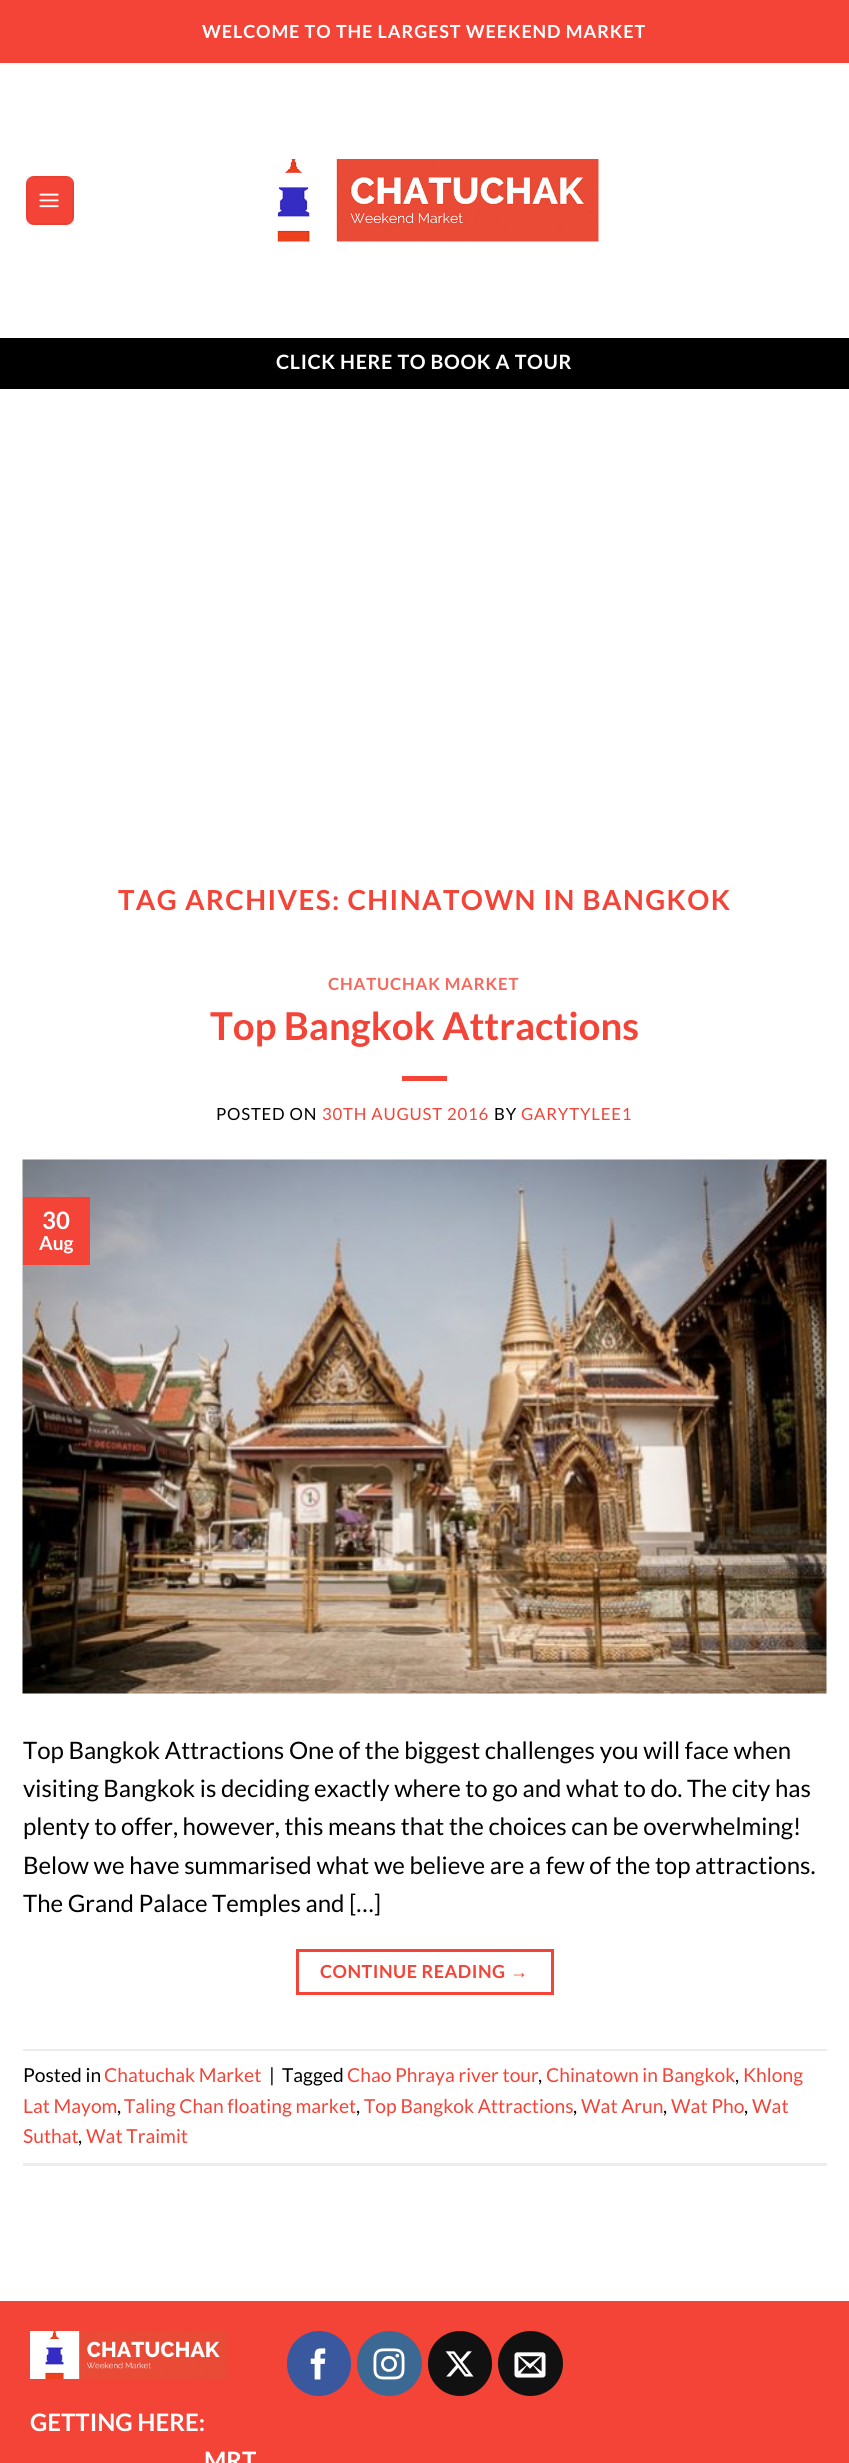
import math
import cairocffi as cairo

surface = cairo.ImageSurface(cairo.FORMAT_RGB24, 849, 2463)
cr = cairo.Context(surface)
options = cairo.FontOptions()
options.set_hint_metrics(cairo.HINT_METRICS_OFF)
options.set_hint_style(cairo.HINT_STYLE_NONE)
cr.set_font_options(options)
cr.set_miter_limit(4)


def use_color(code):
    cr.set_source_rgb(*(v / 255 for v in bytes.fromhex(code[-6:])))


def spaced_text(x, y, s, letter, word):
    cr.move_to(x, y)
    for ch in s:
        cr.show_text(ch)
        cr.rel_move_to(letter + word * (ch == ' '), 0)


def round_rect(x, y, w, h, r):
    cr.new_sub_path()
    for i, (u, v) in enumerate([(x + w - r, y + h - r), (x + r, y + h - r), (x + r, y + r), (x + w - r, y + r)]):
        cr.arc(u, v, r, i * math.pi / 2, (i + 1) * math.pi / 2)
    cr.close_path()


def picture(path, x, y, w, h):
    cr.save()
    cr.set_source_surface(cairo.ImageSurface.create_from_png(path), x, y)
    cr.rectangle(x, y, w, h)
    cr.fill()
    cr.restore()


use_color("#ffffff")
cr.paint()
use_color("#f44337")
cr.rectangle(0, 0, 849, 63)
cr.fill()
cr.select_font_face("Lato", cairo.FONT_SLANT_NORMAL, cairo.FONT_WEIGHT_BOLD)
cr.set_font_size(18)
use_color("#ffffff")
spaced_text(202, 38, "WELCOME TO THE LARGEST WEEKEND MARKET", 0.9, 0)
use_color("#f44337")
round_rect(26, 176, 48, 49, 8)
cr.fill()
cr.rectangle(27, 177, 46, 47)
cr.set_source_rgba(0, 0, 0, 0.05)
cr.stroke()
picture("img1.png", 39, 193, 20, 15)
picture("img2.png", 277, 159, 322, 83)
use_color("#000000")
cr.rectangle(0, 338, 849, 51)
cr.fill()
cr.set_font_size(19.75)
use_color("#ffffff")
spaced_text(276, 369, "CLICK HERE TO BOOK A TOUR", 0.6, 0)
cr.set_font_size(27.6)
use_color("#f44337")
spaced_text(118, 910, "TAG ARCHIVES: CHINATOWN IN BANGKOK", 1.4, 0)
cr.set_font_size(16.75)
use_color("#f6695f")
spaced_text(328, 990, "CHATUCHAK MARKET", 0.8, 0)
cr.set_font_size(38.4)
use_color("#f44337")
cr.move_to(210, 1040)
cr.show_text("Top Bangkok Attractions")
cr.rectangle(402, 1076, 45, 5)
cr.fill()
cr.select_font_face("Lato")
cr.set_font_size(16.75)
use_color("#000000")
spaced_text(216, 1120, "POSTED ON", 0.8, 0)
use_color("#f44337")
spaced_text(322, 1120, "30TH AUGUST 2016", 0.8, 0)
use_color("#000000")
spaced_text(494, 1120, "BY", 0.8, 0)
use_color("#f44337")
spaced_text(521, 1120, "GARYTYLEE1", 0.8, 0)
picture("img3.png", 22, 1159, 805, 535)
cr.rectangle(23, 1197, 67, 68)
cr.fill()
cr.select_font_face("Lato", cairo.FONT_SLANT_NORMAL, cairo.FONT_WEIGHT_BOLD)
cr.set_font_size(24)
use_color("#ffffff")
cr.move_to(42, 1229)
cr.show_text("30")
cr.set_font_size(19.25)
cr.move_to(39, 1250)
cr.show_text("Aug")
cr.select_font_face("Lato")
cr.set_font_size(24)
use_color("#000000")
cr.move_to(23, 1759)
cr.show_text("Top Bangkok Attractions One of the biggest challenges you will face when")
cr.move_to(23, 1797)
cr.show_text("visiting Bangkok is deciding exactly where to go and what to do. The city has")
cr.move_to(23, 1835)
cr.show_text("plenty to offer, however, this means that the choices can be overwhelming!")
cr.move_to(23, 1874)
cr.show_text("Below we have summarised what we believe are a few of the top attractions.")
cr.move_to(23, 1912)
cr.show_text("The Grand Palace Temples and […]")
cr.rectangle(297.5, 1950.5, 255, 43)
use_color("#f44337")
cr.set_line_width(3)
cr.stroke()
cr.select_font_face("Lato", cairo.FONT_SLANT_NORMAL, cairo.FONT_WEIGHT_BOLD)
cr.set_font_size(18)
spaced_text(320, 1978, "CONTINUE READING", 0.5, 0)
cr.select_font_face("Liberation Sans", cairo.FONT_SLANT_NORMAL, cairo.FONT_WEIGHT_BOLD)
spaced_text(510, 1978, "→", 0.5, 0)
use_color("#ececec")
cr.rectangle(23, 2049, 804, 2)
cr.fill()
cr.rectangle(23, 2163, 804, 3)
cr.fill()
cr.select_font_face("Lato")
cr.set_font_size(19.25)
use_color("#000000")
cr.move_to(23, 2082)
cr.show_text("Posted in")
use_color("#f44337")
cr.move_to(104, 2082)
cr.show_text("Chatuchak Market")
use_color("#000000")
cr.move_to(269, 2082)
cr.show_text("|")
cr.move_to(282, 2082)
cr.show_text("Tagged")
use_color("#f44337")
cr.move_to(347, 2082)
cr.show_text("Chao Phraya river tour")
use_color("#000000")
cr.move_to(538, 2082)
cr.show_text(",")
use_color("#f44337")
cr.move_to(546, 2082)
cr.show_text("Chinatown in Bangkok")
use_color("#000000")
cr.move_to(735, 2082)
cr.show_text(",")
use_color("#f44337")
cr.move_to(743, 2082)
cr.show_text("Khlong")
cr.move_to(23, 2113)
cr.show_text("Lat Mayom")
use_color("#000000")
cr.move_to(117, 2113)
cr.show_text(",")
use_color("#f44337")
cr.move_to(124, 2113)
cr.show_text("Taling Chan floating market")
use_color("#000000")
cr.move_to(356, 2113)
cr.show_text(",")
use_color("#f44337")
cr.move_to(364, 2113)
cr.show_text("Top Bangkok Attractions")
use_color("#000000")
cr.move_to(573, 2113)
cr.show_text(",")
use_color("#f44337")
cr.move_to(581, 2113)
cr.show_text("Wat Arun")
use_color("#000000")
cr.move_to(663, 2113)
cr.show_text(",")
use_color("#f44337")
cr.move_to(671, 2113)
cr.show_text("Wat Pho")
use_color("#000000")
cr.move_to(744, 2113)
cr.show_text(",")
use_color("#f44337")
cr.move_to(752, 2113)
cr.show_text("Wat")
cr.move_to(23, 2143)
cr.show_text("Suthat")
use_color("#000000")
cr.move_to(78, 2143)
cr.show_text(",")
use_color("#f44337")
cr.move_to(86, 2143)
cr.show_text("Wat Traimit")
cr.rectangle(0, 2301, 849, 162)
cr.fill()
use_color("#3a589d")
round_rect(288, 2332, 62, 63, 31)
cr.fill_preserve()
cr.set_line_width(2)
cr.stroke()
picture("img4.png", 310, 2348, 16, 32)
use_color("#3b6994")
cr.arc(389.5, 2363.5, 31.5, 0, 2 * math.pi)
cr.fill_preserve()
cr.stroke()
picture("img5.png", 373, 2348, 32, 32)
use_color("#111111")
round_rect(429, 2332, 62, 63, 31)
cr.fill_preserve()
cr.stroke()
picture("img6.png", 445, 2351, 29, 26)
cr.arc(530.5, 2363.5, 31.5, 0, 2 * math.pi)
cr.fill_preserve()
cr.stroke()
picture("img7.png", 514, 2352, 32, 26)
picture("img8.png", 30, 2331, 198, 48)
cr.select_font_face("Lato", cairo.FONT_SLANT_NORMAL, cairo.FONT_WEIGHT_BOLD)
cr.set_font_size(24)
use_color("#ffffff")
cr.move_to(30, 2431)
cr.show_text("GETTING HERE:")
cr.move_to(204, 2469)
cr.show_text("MRT")
surface.write_to_png("result.png")
